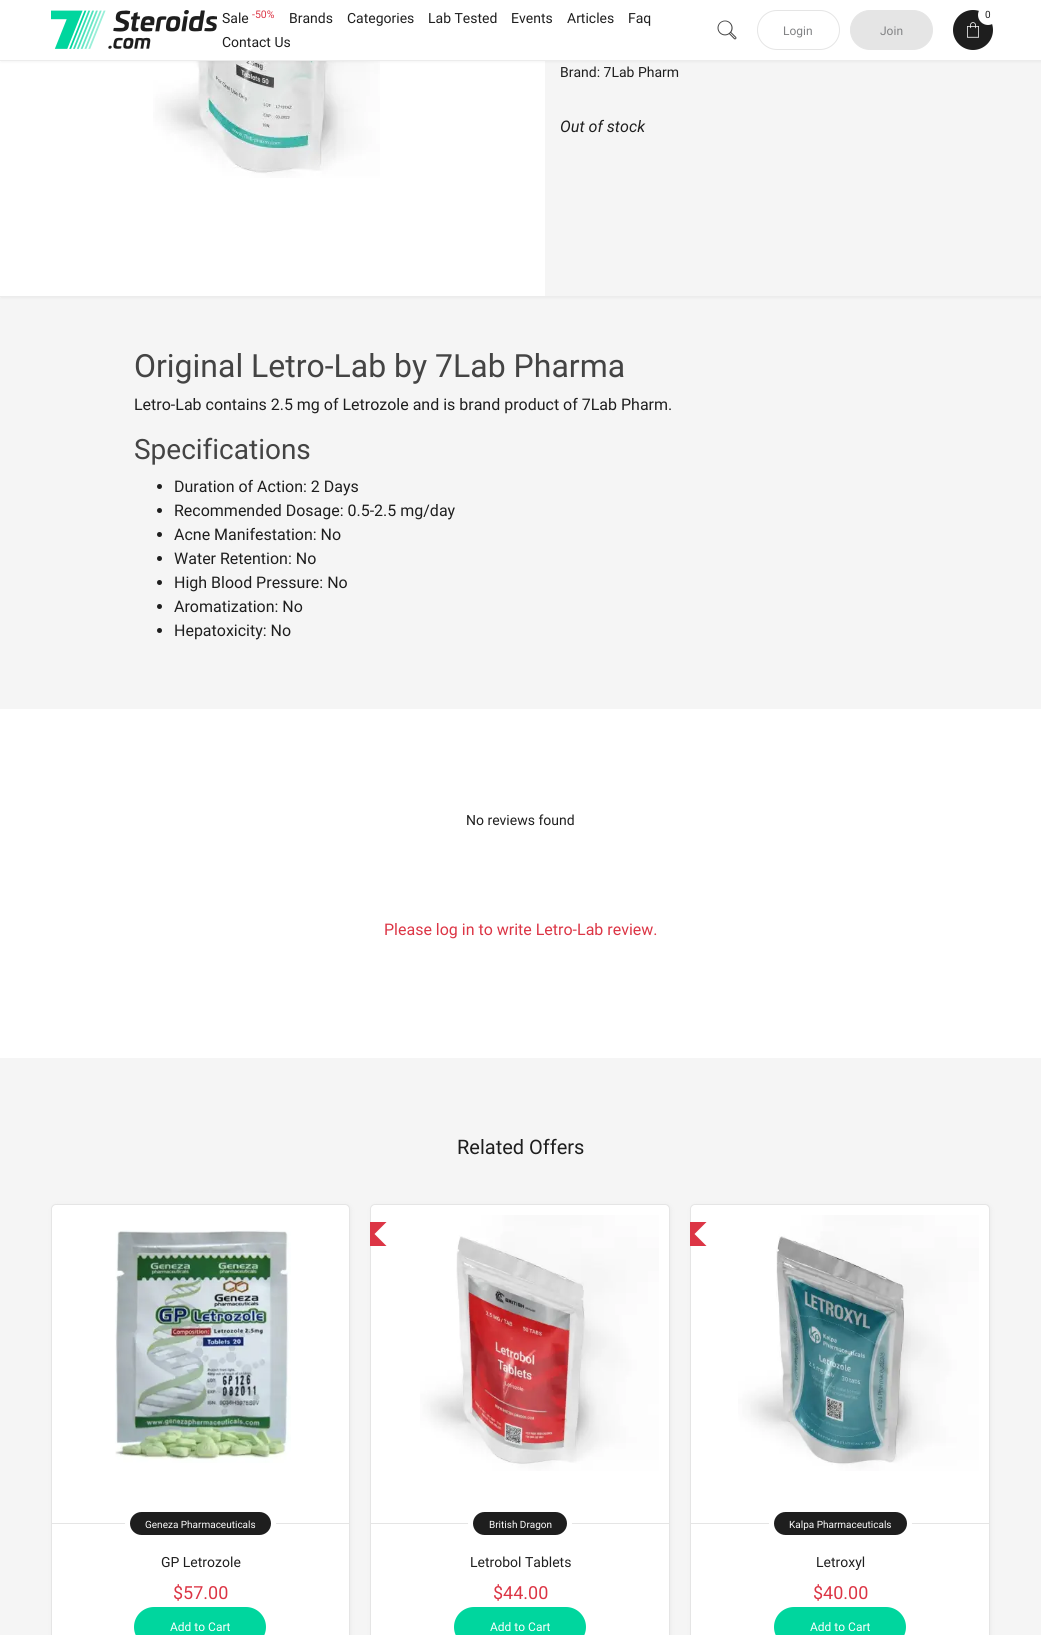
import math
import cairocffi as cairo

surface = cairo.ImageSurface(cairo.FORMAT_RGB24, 1041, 1635)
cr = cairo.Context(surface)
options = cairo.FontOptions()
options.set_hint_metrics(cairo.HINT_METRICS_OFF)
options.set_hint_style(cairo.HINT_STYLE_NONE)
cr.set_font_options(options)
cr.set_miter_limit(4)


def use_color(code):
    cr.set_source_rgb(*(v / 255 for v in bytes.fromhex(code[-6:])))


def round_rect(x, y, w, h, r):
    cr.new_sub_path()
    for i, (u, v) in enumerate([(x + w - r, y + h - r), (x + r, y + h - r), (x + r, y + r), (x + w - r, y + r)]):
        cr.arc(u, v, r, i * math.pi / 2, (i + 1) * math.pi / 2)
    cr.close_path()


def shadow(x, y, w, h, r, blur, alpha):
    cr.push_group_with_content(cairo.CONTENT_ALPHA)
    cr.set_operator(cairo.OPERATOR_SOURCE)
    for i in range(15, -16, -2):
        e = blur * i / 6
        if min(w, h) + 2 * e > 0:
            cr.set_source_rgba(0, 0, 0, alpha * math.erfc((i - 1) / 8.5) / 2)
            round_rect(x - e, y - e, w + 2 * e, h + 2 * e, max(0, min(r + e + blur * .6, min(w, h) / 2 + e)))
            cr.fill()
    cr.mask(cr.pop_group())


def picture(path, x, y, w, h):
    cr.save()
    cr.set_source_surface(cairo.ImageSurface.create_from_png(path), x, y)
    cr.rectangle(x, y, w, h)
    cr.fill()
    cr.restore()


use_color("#f5f5f5")
cr.paint()
use_color("#444444")
shadow(1, -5, 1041, 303, 0, 1.5, 0.06)
use_color("#ffffff")
cr.rectangle(0, 61, 545, 235)
cr.fill()
picture("img4.png", 153, 61, 227, 117)
use_color("#f5f5f5")
cr.rectangle(545, 61, 496, 235)
cr.fill()
use_color("#444444")
shadow(1, 1, 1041, 61, 0, 1.5, 0.06)
use_color("#ffffff")
cr.rectangle(0, 0, 1041, 60)
cr.fill()
use_color("#ececec")
cr.rectangle(0, 60, 1041, 1)
cr.fill()
picture("img1.png", 51, 10, 166, 39)
cr.select_font_face("Roboto")
cr.set_font_size(14)
use_color("#1e1e1e")
cr.move_to(222, 23)
cr.show_text("Sale")
cr.set_font_size(10.5)
use_color("#dc3545")
cr.move_to(252, 18)
cr.show_text("-50%")
cr.set_font_size(14)
use_color("#1e1e1e")
cr.move_to(289, 23)
cr.show_text("Brands")
cr.move_to(347, 23)
cr.show_text("Categories")
cr.move_to(428, 23)
cr.show_text("Lab Tested")
cr.move_to(511, 23)
cr.show_text("Events")
cr.move_to(567, 23)
cr.show_text("Articles")
cr.move_to(628, 23)
cr.show_text("Faq")
cr.move_to(222, 47)
cr.show_text("Contact Us")
cr.new_path()
cr.arc(973, 30, 20, 0, 2 * math.pi)
cr.fill()
picture("img2.png", 967, 22, 12, 16)
use_color("#ffffff")
cr.arc(988, 15, 10, 0, 2 * math.pi)
cr.fill()
cr.set_font_size(10)
use_color("#1e1e1e")
cr.move_to(985, 18)
cr.show_text("0")
picture("img3.png", 717, 20, 20, 20)
round_rect(757.5, 10.5, 82, 39, 19.5)
use_color("#e5e5e5")
cr.set_line_width(1)
cr.stroke()
cr.set_font_size(12)
use_color("#818284")
cr.move_to(783, 35)
cr.show_text("Login")
use_color("#e5e5e5")
round_rect(850.5, 10.5, 82, 39, 19.5)
cr.fill_preserve()
cr.stroke()
use_color("#818284")
cr.move_to(880, 35)
cr.show_text("Join")
use_color("#ececec")
cr.rectangle(0, 296, 2, 1)
cr.fill()
cr.set_font_size(14)
use_color("#1e1e1e")
cr.move_to(560, 77)
cr.show_text("Brand: 7Lab Pharm")
cr.select_font_face("Roboto", cairo.FONT_SLANT_ITALIC)
cr.set_font_size(16)
cr.move_to(560, 132)
cr.show_text("Out of stock")
cr.select_font_face("Roboto")
cr.set_font_size(32)
use_color("#444444")
cr.move_to(134, 377)
cr.show_text("Original Letro-Lab by 7Lab Pharma")
cr.set_font_size(16)
use_color("#1e1e1e")
cr.move_to(134, 410)
cr.show_text("Letro-Lab contains 2.5 mg of Letrozole and is brand product of 7Lab Pharm.")
cr.set_font_size(28)
use_color("#444444")
cr.move_to(134, 459)
cr.show_text("Specifications")
use_color("#1e1e1e")
cr.new_path()
cr.arc(159.5, 486.5, 2.5, 0, 2 * math.pi)
cr.fill()
cr.set_font_size(16)
cr.move_to(174, 492)
cr.show_text("Duration of Action: 2 Days")
cr.new_path()
cr.arc(159.5, 510.5, 2.5, 0, 2 * math.pi)
cr.fill()
cr.move_to(174, 516)
cr.show_text("Recommended Dosage: 0.5-2.5 mg/day")
cr.new_path()
cr.arc(159.5, 534.5, 2.5, 0, 2 * math.pi)
cr.fill()
cr.move_to(174, 540)
cr.show_text("Acne Manifestation: No")
cr.new_path()
cr.arc(159.5, 558.5, 2.5, 0, 2 * math.pi)
cr.fill()
cr.move_to(174, 564)
cr.show_text("Water Retention: No")
cr.new_path()
cr.arc(159.5, 582.5, 2.5, 0, 2 * math.pi)
cr.fill()
cr.move_to(174, 588)
cr.show_text("High Blood Pressure: No")
cr.new_path()
cr.arc(159.5, 606.5, 2.5, 0, 2 * math.pi)
cr.fill()
cr.move_to(174, 612)
cr.show_text("Aromatization: No")
cr.new_path()
cr.arc(159.5, 630.5, 2.5, 0, 2 * math.pi)
cr.fill()
cr.move_to(174, 636)
cr.show_text("Hepatoxicity: No")
use_color("#ffffff")
cr.rectangle(0, 709, 1041, 349)
cr.fill()
cr.set_font_size(14)
use_color("#1e1e1e")
cr.move_to(466, 825)
cr.show_text("No reviews found")
cr.set_font_size(16)
use_color("#dc3545")
cr.move_to(384, 935)
cr.show_text("Please log in to write Letro-Lab review.")
cr.set_font_size(20)
use_color("#1e1e1e")
cr.move_to(457, 1154)
cr.show_text("Related Offers")
use_color("#444444")
shadow(52, 1205, 299, 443, 5, 2.5, 0.06)
use_color("#ffffff")
round_rect(51.5, 1204.5, 298, 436, 4.5)
cr.fill_preserve()
use_color("#e5e5e5")
cr.stroke()
cr.rectangle(52, 1523, 297, 1)
cr.fill()
picture("img5.png", 115, 1230, 176, 233)
use_color("#1e1e1e")
round_rect(127.5, 1509.5, 146, 28, 14)
cr.fill_preserve()
use_color("#ffffff")
cr.set_line_width(5)
cr.stroke()
cr.set_font_size(10)
cr.move_to(145, 1528)
cr.show_text("Geneza Pharmaceuticals")
cr.set_font_size(14)
use_color("#1e1e1e")
cr.move_to(161, 1567)
cr.show_text("GP Letrozole")
cr.set_font_size(18)
use_color("#dc3545")
cr.move_to(173, 1599)
cr.show_text("$57.00")
use_color("#00d69e")
round_rect(135, 1608, 130, 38, 19)
cr.fill_preserve()
cr.set_line_width(2)
cr.stroke()
cr.set_font_size(12)
use_color("#ffffff")
cr.move_to(170, 1631)
cr.show_text("Add to Cart")
use_color("#444444")
shadow(371, 1205, 300, 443, 5, 2.5, 0.06)
use_color("#ffffff")
round_rect(370.5, 1204.5, 299, 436, 4.5)
cr.fill_preserve()
use_color("#e5e5e5")
cr.set_line_width(1)
cr.stroke()
cr.save()
cr.rectangle(370, 1220, 298, 26)
cr.clip()
use_color("#dc3545")
cr.new_path()
cr.move_to(362.5, 1222)
cr.line_to(386.5, 1222)
cr.line_to(374.5, 1234)
cr.line_to(350.5, 1234)
cr.close_path()
cr.move_to(350.5, 1234)
cr.line_to(374.5, 1234)
cr.line_to(386.5, 1246)
cr.line_to(362.5, 1246)
cr.close_path()
cr.fill()
cr.restore()
cr.rectangle(371, 1523, 298, 1)
cr.fill()
picture("img6.png", 420, 1215, 239, 256)
use_color("#1e1e1e")
round_rect(470.5, 1509.5, 99, 28, 14)
cr.fill_preserve()
use_color("#ffffff")
cr.set_line_width(5)
cr.stroke()
cr.set_font_size(10)
cr.move_to(489, 1528)
cr.show_text("British Dragon")
cr.set_font_size(14)
use_color("#1e1e1e")
cr.move_to(470, 1567)
cr.show_text("Letrobol Tablets")
cr.set_font_size(18)
use_color("#dc3545")
cr.move_to(493, 1599)
cr.show_text("$44.00")
use_color("#00d69e")
round_rect(455, 1608, 130, 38, 19)
cr.fill_preserve()
cr.set_line_width(2)
cr.stroke()
cr.set_font_size(12)
use_color("#ffffff")
cr.move_to(490, 1631)
cr.show_text("Add to Cart")
use_color("#444444")
shadow(691, 1205, 300, 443, 5, 2.5, 0.06)
use_color("#ffffff")
round_rect(690.5, 1204.5, 299, 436, 4.5)
cr.fill_preserve()
use_color("#e5e5e5")
cr.set_line_width(1)
cr.stroke()
cr.save()
cr.rectangle(690, 1220, 298, 26)
cr.clip()
use_color("#dc3545")
cr.new_path()
cr.move_to(682.5, 1222)
cr.line_to(706.5, 1222)
cr.line_to(694.5, 1234)
cr.line_to(670.5, 1234)
cr.close_path()
cr.move_to(670.5, 1234)
cr.line_to(694.5, 1234)
cr.line_to(706.5, 1246)
cr.line_to(682.5, 1246)
cr.close_path()
cr.fill()
cr.restore()
cr.rectangle(691, 1523, 298, 1)
cr.fill()
picture("img7.png", 738, 1215, 241, 256)
use_color("#1e1e1e")
round_rect(771.5, 1509.5, 138, 28, 14)
cr.fill_preserve()
use_color("#ffffff")
cr.set_line_width(5)
cr.stroke()
cr.set_font_size(10)
cr.move_to(789, 1528)
cr.show_text("Kalpa Pharmaceuticals")
cr.set_font_size(14)
use_color("#1e1e1e")
cr.move_to(816, 1567)
cr.show_text("Letroxyl")
cr.set_font_size(18)
use_color("#dc3545")
cr.move_to(813, 1599)
cr.show_text("$40.00")
use_color("#00d69e")
round_rect(775, 1608, 130, 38, 19)
cr.fill_preserve()
cr.set_line_width(2)
cr.stroke()
cr.set_font_size(12)
use_color("#ffffff")
cr.move_to(810, 1631)
cr.show_text("Add to Cart")
surface.write_to_png("result.png")
